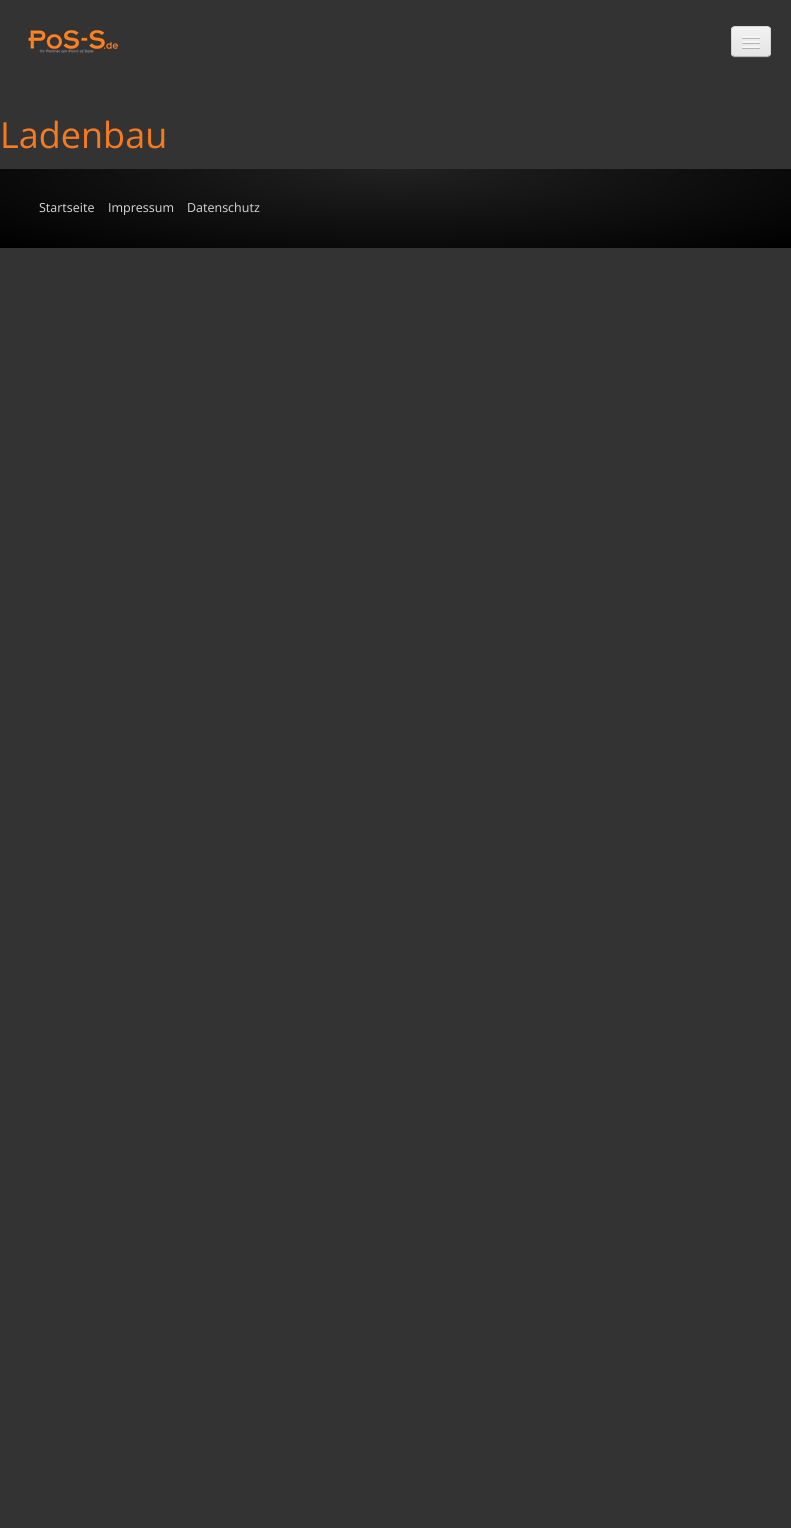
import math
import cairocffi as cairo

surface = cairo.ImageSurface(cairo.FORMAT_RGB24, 791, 1528)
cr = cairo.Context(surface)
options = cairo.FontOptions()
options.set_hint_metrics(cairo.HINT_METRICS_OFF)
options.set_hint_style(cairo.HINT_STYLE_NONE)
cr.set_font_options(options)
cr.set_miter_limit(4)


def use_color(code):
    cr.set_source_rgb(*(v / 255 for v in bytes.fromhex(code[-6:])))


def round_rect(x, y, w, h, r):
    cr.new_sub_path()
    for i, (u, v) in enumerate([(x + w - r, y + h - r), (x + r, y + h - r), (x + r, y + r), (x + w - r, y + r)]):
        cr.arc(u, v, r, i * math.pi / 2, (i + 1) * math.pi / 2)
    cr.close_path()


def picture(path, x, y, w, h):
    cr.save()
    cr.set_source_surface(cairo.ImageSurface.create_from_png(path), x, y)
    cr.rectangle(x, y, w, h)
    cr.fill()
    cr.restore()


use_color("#333333")
cr.paint()
picture("img1.png", 28, 30, 91, 24)
use_color("#424242")
cr.new_path()
cr.move_to(731, 53)
cr.curve_to(731, 59, 736, 58, 740, 58)
cr.line_to(762, 58)
cr.curve_to(766, 58, 771, 59, 771, 53)
cr.curve_to(771, 55, 769, 57, 767, 57)
cr.line_to(735, 57)
cr.curve_to(733, 57, 731, 55, 731, 53)
cr.close_path()
cr.fill()
use_color("#ededed")
round_rect(731, 26, 40, 31, 4)
cr.fill()
cr.save()
round_rect(731, 26, 40, 31, 4)
cr.clip()
gradient = cairo.LinearGradient(751, 27, 751, 56)
gradient.add_color_stop_rgba(0, 0.949, 0.949, 0.949, 1)
gradient.add_color_stop_rgba(1, 0.898, 0.898, 0.898, 1)
cr.set_source(gradient)
cr.rectangle(731, 27, 40, 29)
cr.fill()
cr.restore()
cr.new_path()
cr.move_to(769.5, 55.5)
cr.curve_to(769, 56, 768, 56.5, 767, 56.5)
cr.line_to(735, 56.5)
cr.curve_to(734, 56.5, 733, 56, 732.5, 55.5)
cr.set_source_rgba(0, 0, 0, 0.25)
cr.set_line_width(1)
cr.stroke()
cr.new_path()
cr.move_to(732.5, 55.5)
cr.curve_to(732, 55, 731.5, 54, 731.5, 53)
cr.line_to(731.5, 30)
cr.curve_to(731.5, 29, 732, 28, 732.5, 27.5)
cr.curve_to(733, 27, 734, 26.5, 735, 26.5)
cr.line_to(767, 26.5)
cr.curve_to(768, 26.5, 769, 27, 769.5, 27.5)
cr.curve_to(770, 28, 770.5, 29, 770.5, 30)
cr.line_to(770.5, 53)
cr.curve_to(770.5, 54, 770, 55, 769.5, 55.5)
cr.set_source_rgba(0, 0, 0, 0.1)
cr.stroke()
use_color("#b2b2b2")
cr.new_path()
cr.move_to(742, 37.5)
cr.curve_to(741, 39.5, 745.5, 39, 745.5, 39)
cr.line_to(756.5, 39)
cr.curve_to(756.5, 39, 761, 39.5, 760, 37.5)
cr.curve_to(759, 38.5, 752.5, 38, 751, 38)
cr.curve_to(749.5, 38, 743, 38.5, 742, 37.5)
cr.close_path()
cr.fill()
use_color("#f5f5f5")
round_rect(742, 36, 18, 2, 1)
cr.fill()
use_color("#b0b0b0")
cr.new_path()
cr.move_to(742, 42.5)
cr.curve_to(741, 44.5, 745.5, 44, 745.5, 44)
cr.line_to(756.5, 44)
cr.curve_to(756.5, 44, 761, 44.5, 760, 42.5)
cr.curve_to(759, 43.5, 752.5, 43, 751, 43)
cr.curve_to(749.5, 43, 743, 43.5, 742, 42.5)
cr.close_path()
cr.fill()
use_color("#f5f5f5")
round_rect(742, 41, 18, 2, 1)
cr.fill()
use_color("#aeaeae")
cr.new_path()
cr.move_to(742, 47.5)
cr.curve_to(741, 49.5, 745.5, 49, 745.5, 49)
cr.line_to(756.5, 49)
cr.curve_to(756.5, 49, 761, 49.5, 760, 47.5)
cr.curve_to(759, 48.5, 752.5, 48, 751, 48)
cr.curve_to(749.5, 48, 743, 48.5, 742, 47.5)
cr.close_path()
cr.fill()
use_color("#f5f5f5")
round_rect(742, 46, 18, 2, 1)
cr.fill()
cr.select_font_face("Open Sans")
cr.set_font_size(36)
use_color("#f67b20")
cr.move_to(0, 148)
cr.show_text("Ladenbau")
gradient = cairo.RadialGradient(0, 0, 0, 0, 0, 1)
gradient.set_matrix(cairo.Matrix(1 / 559, 0, 0, 1 / 112, -1 * 396 / 559, -1 * 169 / 112))
gradient.add_color_stop_rgba(0, 0.129, 0.129, 0.129, 1)
gradient.add_color_stop_rgba(1, 0, 0, 0, 1)
cr.set_source(gradient)
cr.rectangle(0, 169, 791, 79)
cr.fill()
cr.set_font_size(12.5)
use_color("#d9d9d9")
cr.move_to(39, 212)
cr.show_text("Startseite")
cr.move_to(108, 212)
cr.show_text("Impressum")
cr.move_to(187, 212)
cr.show_text("Datenschutz")
surface.write_to_png("result.png")
